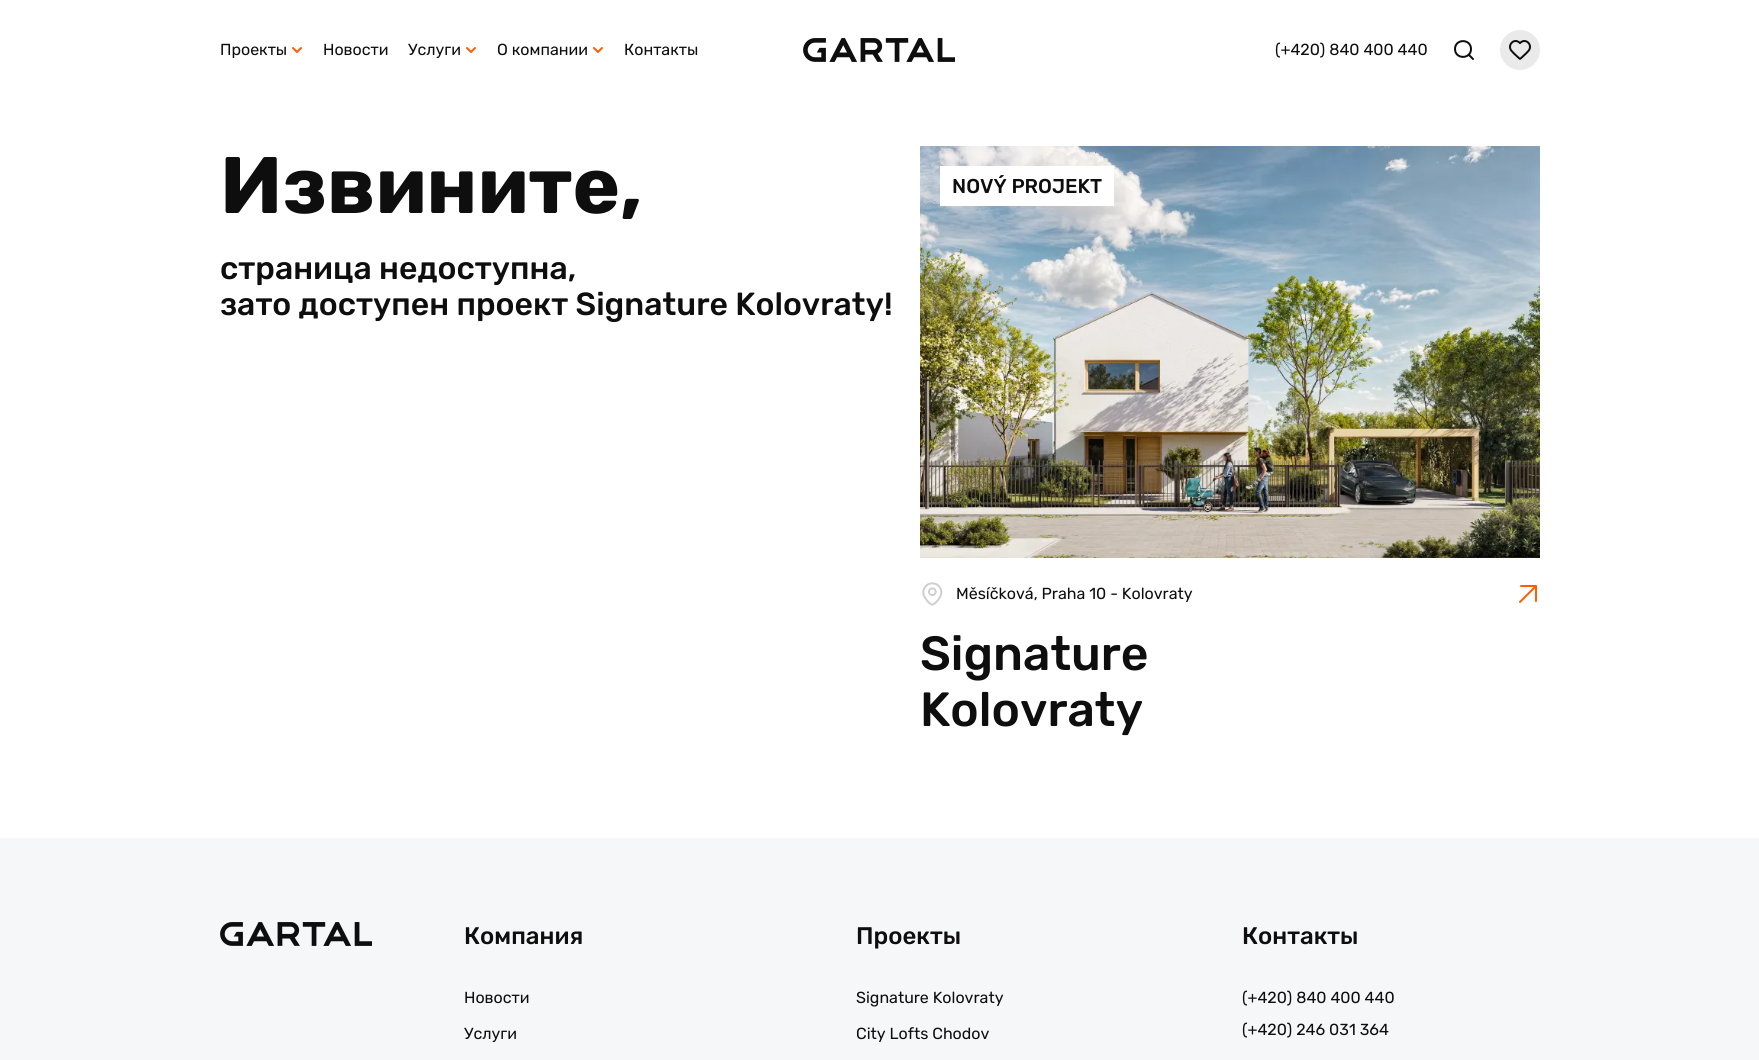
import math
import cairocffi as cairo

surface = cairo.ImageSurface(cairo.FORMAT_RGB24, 1759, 1060)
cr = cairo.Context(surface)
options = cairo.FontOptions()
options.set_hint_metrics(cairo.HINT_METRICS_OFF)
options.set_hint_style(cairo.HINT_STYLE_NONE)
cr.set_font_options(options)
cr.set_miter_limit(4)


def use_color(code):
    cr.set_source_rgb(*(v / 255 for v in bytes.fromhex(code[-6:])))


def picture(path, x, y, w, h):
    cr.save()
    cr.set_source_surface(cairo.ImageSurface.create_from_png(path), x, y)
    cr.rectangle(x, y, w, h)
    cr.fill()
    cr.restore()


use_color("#ffffff")
cr.paint()
cr.select_font_face("Rubik")
cr.set_font_size(16)
use_color("#0e0e0e")
cr.move_to(220, 55)
cr.show_text("Проекты")
cr.new_path()
cr.move_to(293, 48)
cr.line_to(297, 52)
cr.line_to(301, 48)
use_color("#ff5e00")
cr.set_line_cap(cairo.LINE_CAP_ROUND)
cr.set_line_join(cairo.LINE_JOIN_ROUND)
cr.stroke()
use_color("#0e0e0e")
cr.move_to(323, 55)
cr.show_text("Новости")
cr.move_to(408, 55)
cr.show_text("Услуги")
cr.new_path()
cr.move_to(467, 48)
cr.line_to(471, 52)
cr.line_to(475, 48)
use_color("#ff5e00")
cr.stroke()
use_color("#0e0e0e")
cr.move_to(497, 55)
cr.show_text("О компании")
cr.new_path()
cr.move_to(594, 48)
cr.line_to(598, 52)
cr.line_to(602, 48)
use_color("#ff5e00")
cr.stroke()
use_color("#0e0e0e")
cr.move_to(624, 55)
cr.show_text("Контакты")
picture("img1.png", 803, 38, 152, 24)
cr.move_to(1275, 55)
cr.show_text("(+420) 840 400 440")
cr.new_path()
cr.move_to(1473, 59)
cr.line_to(1468.5, 54.5)
cr.move_to(1471, 49)
cr.curve_to(1471, 59.5, 1455, 59.5, 1455, 49)
cr.curve_to(1455, 38.5, 1471, 38.5, 1471, 49)
cr.close_path()
cr.stroke()
use_color("#eaeaea")
cr.arc(1520, 50, 20, 0, 2 * math.pi)
cr.fill()
picture("img2.png", 1509, 40, 22, 20)
cr.select_font_face("Rubik", cairo.FONT_SLANT_NORMAL, cairo.FONT_WEIGHT_BOLD)
cr.set_font_size(80)
use_color("#0e0e0e")
cr.move_to(220, 213)
cr.show_text("Извините,")
cr.select_font_face("Rubik Medium")
cr.set_font_size(32)
cr.move_to(220, 279)
cr.show_text("страница недоступна,")
cr.move_to(220, 315)
cr.show_text("зато доступен проект Signature Kolovraty!")
picture("img3.png", 920, 146, 620, 412)
use_color("#ffffff")
cr.rectangle(940, 166, 174, 40)
cr.fill()
cr.set_font_size(20)
use_color("#0e0e0e")
cr.move_to(952, 193)
cr.show_text("NOVÝ PROJEKT")
picture("img4.png", 922, 582, 21, 24)
cr.select_font_face("Rubik")
cr.set_font_size(16)
cr.move_to(956, 599)
cr.show_text("Měsíčková, Praha 10 - Kolovraty")
cr.new_path()
cr.move_to(1520, 602)
cr.line_to(1536, 586)
cr.move_to(1536, 586)
cr.line_to(1521, 586)
cr.move_to(1536, 586)
cr.line_to(1536, 601)
use_color("#ff5e00")
cr.stroke()
cr.select_font_face("Rubik Medium")
cr.set_font_size(48)
use_color("#0e0e0e")
cr.move_to(920, 670)
cr.show_text("Signature")
cr.move_to(920, 726)
cr.show_text("Kolovraty")
use_color("#f6f7f9")
cr.rectangle(0, 838, 1759, 222)
cr.fill()
picture("img5.png", 220, 922, 152, 24)
cr.set_font_size(24)
use_color("#0e0e0e")
cr.move_to(464, 944)
cr.show_text("Компания")
cr.select_font_face("Rubik")
cr.set_font_size(16)
cr.move_to(464, 1003)
cr.show_text("Новости")
cr.move_to(464, 1039)
cr.show_text("Услуги")
cr.select_font_face("Rubik Medium")
cr.set_font_size(24)
cr.move_to(856, 944)
cr.show_text("Проекты")
cr.select_font_face("Rubik")
cr.set_font_size(16)
cr.move_to(856, 1003)
cr.show_text("Signature Kolovraty")
cr.move_to(856, 1039)
cr.show_text("City Lofts Chodov")
cr.select_font_face("Rubik Medium")
cr.set_font_size(24)
cr.move_to(1242, 944)
cr.show_text("Контакты")
cr.select_font_face("Rubik")
cr.set_font_size(16)
cr.move_to(1242, 1003)
cr.show_text("(+420) 840 400 440")
cr.move_to(1242, 1035)
cr.show_text("(+420) 246 031 364")
surface.write_to_png("result.png")
